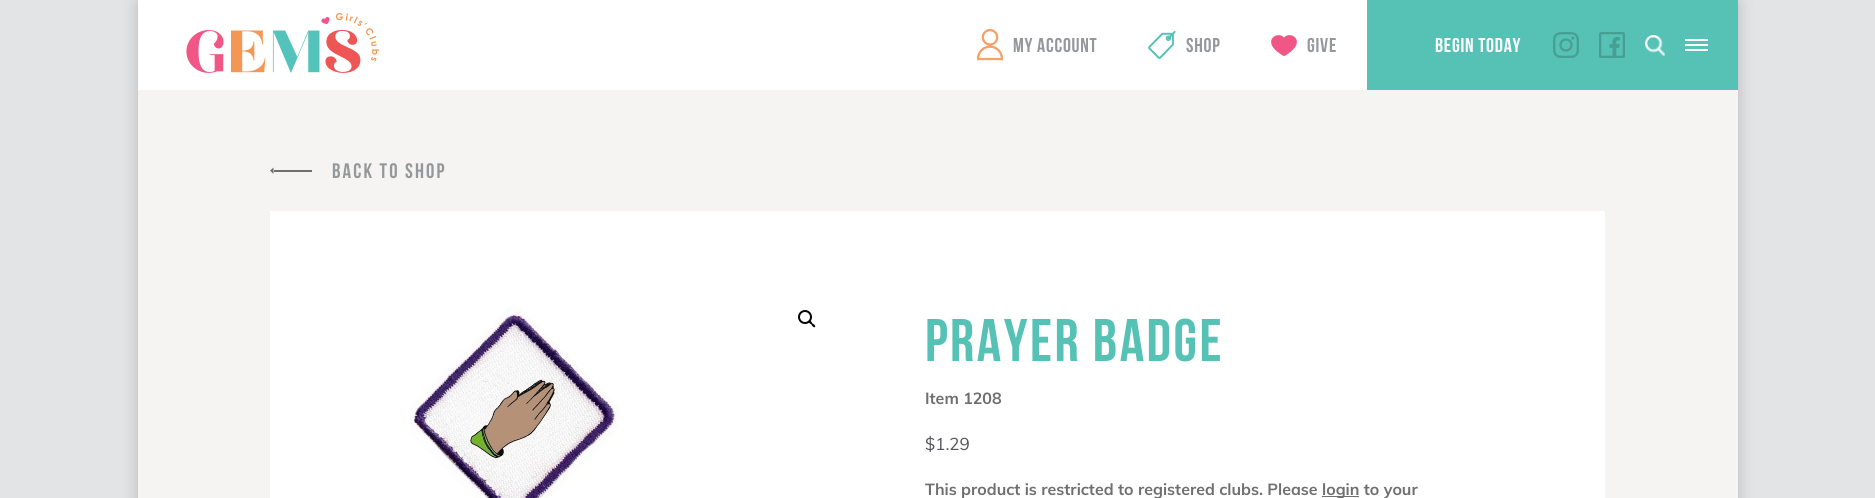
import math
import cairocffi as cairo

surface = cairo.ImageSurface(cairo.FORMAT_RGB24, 1875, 498)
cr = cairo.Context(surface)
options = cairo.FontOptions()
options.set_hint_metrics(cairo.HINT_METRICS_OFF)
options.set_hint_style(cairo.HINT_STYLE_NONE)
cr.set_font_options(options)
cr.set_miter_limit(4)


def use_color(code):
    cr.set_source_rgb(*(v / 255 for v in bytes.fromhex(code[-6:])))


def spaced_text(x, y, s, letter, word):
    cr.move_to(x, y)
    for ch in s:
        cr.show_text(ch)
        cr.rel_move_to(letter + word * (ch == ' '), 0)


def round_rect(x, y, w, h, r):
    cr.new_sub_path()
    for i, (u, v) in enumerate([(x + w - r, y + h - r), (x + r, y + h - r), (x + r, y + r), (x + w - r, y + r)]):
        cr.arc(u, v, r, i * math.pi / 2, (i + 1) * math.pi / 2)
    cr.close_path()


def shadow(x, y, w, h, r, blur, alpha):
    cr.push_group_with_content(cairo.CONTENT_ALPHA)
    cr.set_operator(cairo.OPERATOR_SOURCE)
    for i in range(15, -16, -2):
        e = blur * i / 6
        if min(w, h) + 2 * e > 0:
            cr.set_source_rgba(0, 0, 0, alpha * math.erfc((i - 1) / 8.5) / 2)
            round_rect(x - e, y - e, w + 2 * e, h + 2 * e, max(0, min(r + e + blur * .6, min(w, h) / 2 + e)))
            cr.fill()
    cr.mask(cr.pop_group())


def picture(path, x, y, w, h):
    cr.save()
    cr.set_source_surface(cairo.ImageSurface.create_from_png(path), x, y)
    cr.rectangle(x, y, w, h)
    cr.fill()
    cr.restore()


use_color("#e3e4e5")
cr.paint()
use_color("#000000")
shadow(138, 3, 1600, 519, 0, 8, 0.2)
use_color("#ffffff")
cr.rectangle(138, 0, 1229, 90)
cr.fill()
picture("img1.png", 186, 13, 193, 60)
picture("img2.png", 977, 29, 26, 32)
cr.select_font_face("Bebas Neue")
cr.set_font_size(20)
use_color("#95989a")
spaced_text(1013, 52, "MY ACCOUNT", 0.75, 0)
picture("img3.png", 1148, 31, 28, 28)
spaced_text(1186, 52, "SHOP", 0.75, 0)
use_color("#f05786")
cr.new_path()
cr.move_to(1284, 56)
cr.curve_to(1282.5, 56, 1278, 52, 1277, 51.5)
cr.curve_to(1263, 40, 1277.5, 30.5, 1284, 37.5)
cr.curve_to(1290.5, 30.5, 1305, 40, 1291, 51.5)
cr.curve_to(1290, 52, 1285.5, 56, 1284, 56)
cr.close_path()
cr.fill()
use_color("#95989a")
spaced_text(1307, 52, "GIVE", 0.75, 0)
use_color("#56c2b5")
cr.rectangle(1367, 0, 371, 90)
cr.fill()
use_color("#ffffff")
spaced_text(1435, 52, "BEGIN TODAY", 0.75, 0)
picture("img4.png", 1553, 32, 26, 26)
picture("img5.png", 1599, 32, 26, 26)
picture("img6.png", 1645, 35, 20, 21)
cr.rectangle(1685, 39, 23, 2)
cr.fill()
cr.rectangle(1685, 44, 23, 2)
cr.fill()
cr.rectangle(1685, 49, 23, 2)
cr.fill()
use_color("#f5f4f2")
cr.rectangle(138, 90, 1600, 408)
cr.fill()
use_color("#6f6f6f")
cr.rectangle(274, 170, 38, 2)
cr.fill()
cr.new_path()
cr.move_to(273.5, 174)
cr.line_to(273.5, 167.5)
cr.line_to(270, 170.5)
cr.close_path()
cr.fill()
cr.set_font_size(21)
use_color("#95989a")
spaced_text(332, 178, "BACK TO SHOP", 2.1, 0)
use_color("#ffffff")
cr.rectangle(270, 211, 1335, 287)
cr.fill()
picture("img7.png", 410, 305, 209, 193)
cr.arc(805, 317, 6, 0, 2 * math.pi)
use_color("#000000")
cr.stroke()
cr.new_path()
cr.move_to(809, 321)
cr.curve_to(810.5, 320, 812, 322.5, 812.5, 323.5)
cr.curve_to(813.5, 324, 816, 325.5, 815, 327)
cr.curve_to(813.5, 328, 812, 325.5, 811.5, 324.5)
cr.curve_to(810.5, 324, 808, 322.5, 809, 321)
cr.close_path()
cr.fill()
cr.set_font_size(60)
use_color("#56c2b5")
spaced_text(925, 361, "PRAYER BADGE", 2.5, 0)
cr.select_font_face("Muli", cairo.FONT_SLANT_NORMAL, cairo.FONT_WEIGHT_BOLD)
cr.set_font_size(16)
use_color("#6f6f6f")
cr.move_to(925, 404)
cr.show_text("Item 1208")
cr.select_font_face("Muli")
cr.set_font_size(17)
use_color("#54565b")
cr.move_to(925, 450)
cr.show_text("$1.29")
cr.select_font_face("Muli", cairo.FONT_SLANT_NORMAL, cairo.FONT_WEIGHT_BOLD)
cr.set_font_size(16)
use_color("#6f6f6f")
cr.move_to(925, 495)
cr.show_text("This product is restricted to registered clubs. Please")
cr.rectangle(1322, 496, 37, 1)
cr.fill()
cr.move_to(1322, 495)
cr.show_text("login to your")
surface.write_to_png("result.png")
